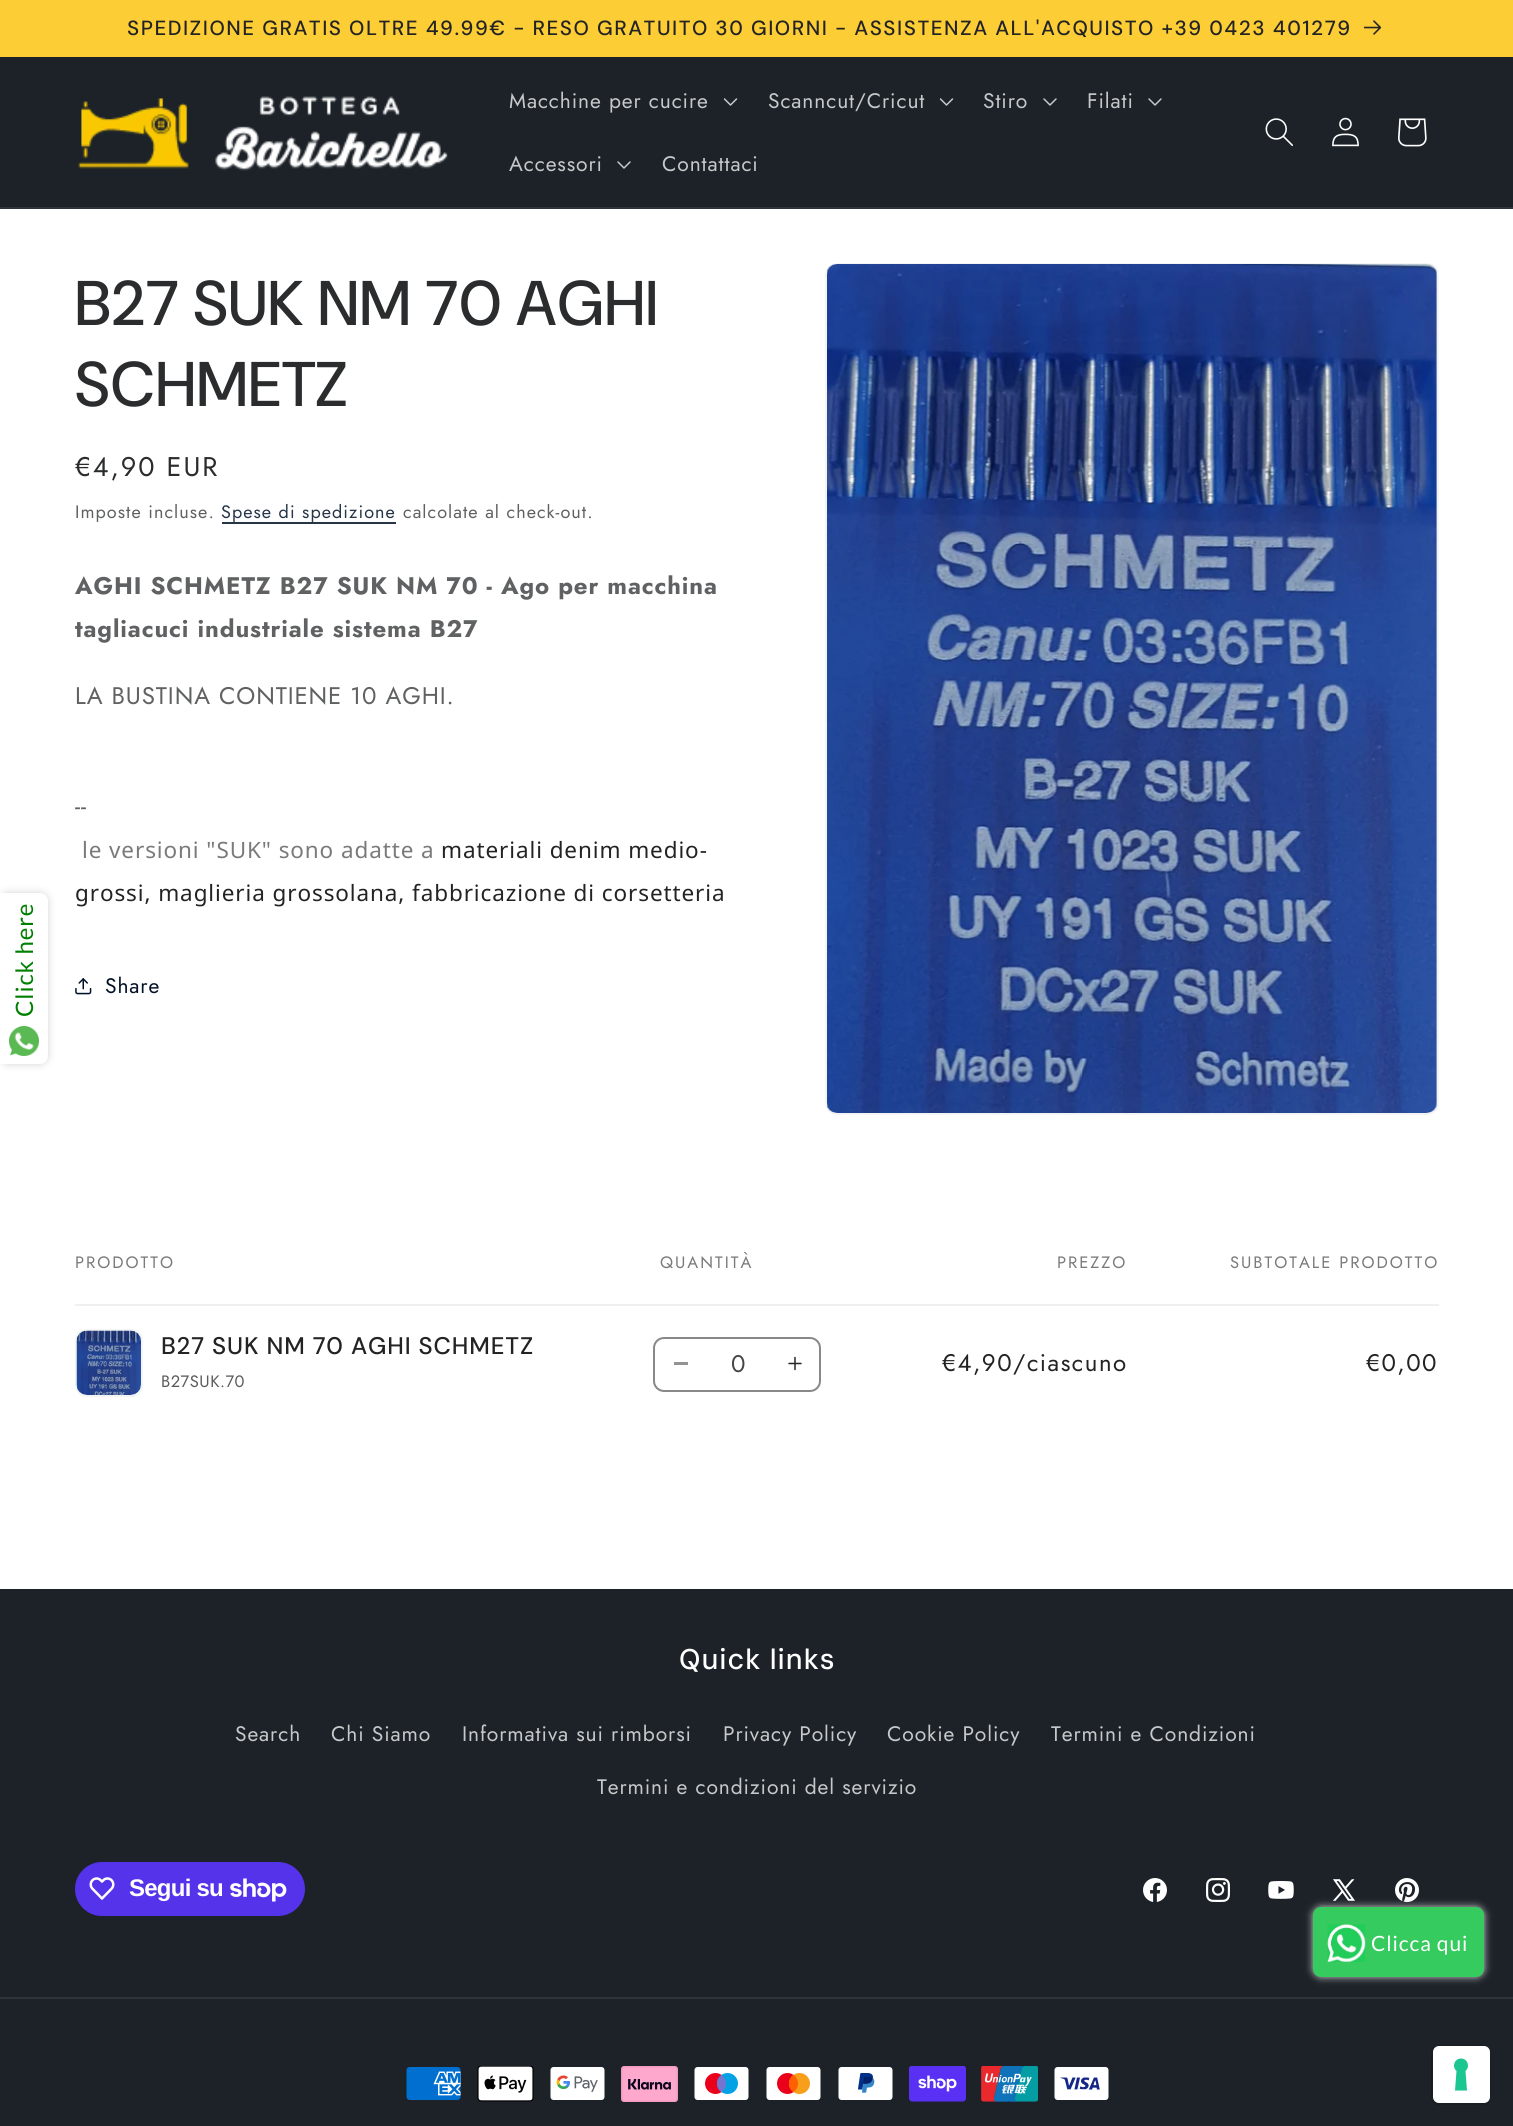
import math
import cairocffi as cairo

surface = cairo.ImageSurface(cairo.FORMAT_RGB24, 1513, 2126)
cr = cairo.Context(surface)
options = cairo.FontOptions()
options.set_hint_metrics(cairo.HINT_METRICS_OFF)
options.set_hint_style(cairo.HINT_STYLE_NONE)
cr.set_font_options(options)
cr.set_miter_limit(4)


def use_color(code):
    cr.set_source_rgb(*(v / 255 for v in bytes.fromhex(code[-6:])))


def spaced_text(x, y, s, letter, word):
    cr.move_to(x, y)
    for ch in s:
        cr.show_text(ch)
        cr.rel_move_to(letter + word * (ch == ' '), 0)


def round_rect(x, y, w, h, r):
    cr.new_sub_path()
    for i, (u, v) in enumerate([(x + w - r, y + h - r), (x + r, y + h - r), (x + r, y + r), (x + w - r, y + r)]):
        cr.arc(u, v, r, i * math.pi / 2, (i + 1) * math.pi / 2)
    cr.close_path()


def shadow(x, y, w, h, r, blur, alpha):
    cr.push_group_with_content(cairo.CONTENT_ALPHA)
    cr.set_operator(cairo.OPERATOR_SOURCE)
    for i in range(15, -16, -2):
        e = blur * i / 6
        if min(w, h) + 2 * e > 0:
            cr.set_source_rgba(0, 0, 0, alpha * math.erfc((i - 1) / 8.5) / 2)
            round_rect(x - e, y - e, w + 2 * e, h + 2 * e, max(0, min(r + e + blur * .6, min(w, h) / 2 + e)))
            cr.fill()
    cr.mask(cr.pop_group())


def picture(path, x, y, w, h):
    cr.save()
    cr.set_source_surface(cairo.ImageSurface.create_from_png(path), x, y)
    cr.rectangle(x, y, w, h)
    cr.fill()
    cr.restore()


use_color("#ffffff")
cr.paint()
use_color("#fccd35")
cr.rectangle(0, 0, 1513, 57)
cr.fill()
cr.select_font_face("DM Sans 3 Medium")
cr.set_font_size(20.48)
use_color("#232323")
spaced_text(127, 35, "SPEDIZIONE GRATIS OLTRE 49.99€ - RESO GRATUITO 30 GIORNI - ASSISTENZA ALL'ACQUISTO +39 0423 401279", 1.5, -0.25)
picture("img1.png", 1364, 20, 18, 15)
use_color("#1c2228")
cr.rectangle(0, 57, 1513, 150)
cr.fill()
use_color("#2e3439")
cr.rectangle(0, 207, 1513, 2)
cr.fill()
picture("img2.png", 78, 96, 370, 75)
cr.select_font_face("Jost")
cr.set_font_size(21)
use_color("#c6c8c9")
spaced_text(509, 108, "Macchine per cucire", 0.9, 0)
picture("img3.png", 723, 98, 15, 8)
spaced_text(768, 108, "Scanncut/Cricut", 0.9, 0)
picture("img3.png", 939, 98, 15, 8)
spaced_text(983, 108, "Stiro", 0.9, 0)
picture("img4.png", 1043, 98, 14, 8)
spaced_text(1087, 108, "Filati", 0.9, 0)
picture("img4.png", 1148, 98, 14, 8)
spaced_text(509, 171, "Accessori", 0.9, 0)
picture("img4.png", 617, 161, 14, 8)
spaced_text(662, 171, "Contattaci", 0.9, 0)
picture("img5.png", 1265, 118, 28, 28)
picture("img6.png", 1332, 117, 27, 30)
picture("img7.png", 1398, 118, 29, 29)
use_color("#d3d3d3")
shadow(0, 893, 48, 171, 8, 4, 1)
use_color("#ffffff")
cr.new_path()
cr.move_to(0, 893)
cr.line_to(40, 893)
cr.curve_to(44.5, 893, 48, 896.5, 48, 901)
cr.line_to(48, 1056)
cr.curve_to(48, 1060.5, 44.5, 1064, 40, 1064)
cr.line_to(0, 1064)
cr.close_path()
cr.fill()
cr.select_font_face("Lato")
cr.set_font_size(24)
use_color("#008000")
cr.save()
cr.translate(33, 1017)
cr.rotate(-90 * math.pi / 180)
spaced_text(0, 0, "Click here", 0.9, 0)
cr.restore()
picture("img8.png", 9, 1026, 30, 30)
cr.select_font_face("DM Sans Medium")
cr.set_font_size(63)
use_color("#2b2c2d")
spaced_text(75, 325, "B27 SUK NM 70 AGHI", 1, 0)
spaced_text(75, 406, "SCHMETZ", 1, 0)
cr.select_font_face("Jost")
cr.set_font_size(27)
spaced_text(75, 476, "€4,90 EUR", 2, 0)
cr.set_font_size(18)
use_color("#606162")
spaced_text(75, 518, "Imposte incluse.", 1.05, 0)
use_color("#263548")
spaced_text(221, 518, "Spese di spedizione", 1.05, 0)
cr.rectangle(222, 522, 174, 2)
cr.fill()
use_color("#606162")
spaced_text(403, 518, "calcolate al check-out.", 1.05, 0)
cr.select_font_face("Jost", cairo.FONT_SLANT_NORMAL, cairo.FONT_WEIGHT_BOLD)
cr.set_font_size(24)
spaced_text(75, 594, "AGHI SCHMETZ B27 SUK NM 70 - Ago per macchina", 0.9, 0)
spaced_text(75, 637, "tagliacuci industriale sistema B27", 0.9, 0)
cr.select_font_face("Jost")
spaced_text(75, 704, "LA BUSTINA CONTIENE 10 AGHI.", 0.9, 0)
spaced_text(75, 814, "--", 0.9, 0)
cr.select_font_face("Noto Sans")
cr.set_font_size(22.5)
use_color("#7a7a7a")
spaced_text(82, 858, "le versioni \"SUK\" sono adatte a", 0.9, 0)
use_color("#232323")
spaced_text(441, 858, "materiali denim medio-", 0.9, 0)
spaced_text(75, 901, "grossi, maglieria grossolana, fabbricazione di corsetteria", 0.9, 0)
picture("img9.png", 75, 978, 17, 17)
cr.select_font_face("Jost")
cr.set_font_size(21)
use_color("#001128")
spaced_text(105, 993, "Share", 0.9, 0)
round_rect(826, 264, 612, 850, 11)
use_color("#f4f4f5")
cr.stroke()
picture("img10.png", 827, 264, 610, 849)
use_color("#f0f0f0")
cr.rectangle(75, 1304, 1364, 2)
cr.fill()
cr.set_font_size(16.5)
use_color("#7a7a7a")
spaced_text(75, 1268, "PRODOTTO", 2, 0)
spaced_text(660, 1268, "QUANTITÀ", 2, 0)
spaced_text(1057, 1268, "PREZZO", 2, 0)
spaced_text(1230, 1268, "SUBTOTALE PRODOTTO", 2, 0)
round_rect(76, 1330, 66, 66, 11)
use_color("#f4f4f4")
cr.stroke()
picture("img11.png", 76, 1330, 65, 65)
cr.select_font_face("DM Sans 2 Medium")
cr.set_font_size(24)
use_color("#232323")
spaced_text(161, 1354, "B27 SUK NM 70 AGHI SCHMETZ", 0.9, 0)
cr.select_font_face("Jost")
cr.set_font_size(16.5)
use_color("#5c5c5c")
spaced_text(161, 1387, "B27SUK.70", 0.5, 0)
use_color("#939393")
cr.rectangle(674, 1362, 14, 3)
cr.fill()
picture("img12.png", 788, 1356, 14, 15)
round_rect(654, 1338, 166, 53, 10)
use_color("#888888")
cr.stroke()
cr.set_font_size(24)
use_color("#474747")
cr.move_to(731, 1372)
cr.show_text("0")
use_color("#232323")
spaced_text(942, 1371, "€4,90/ciascuno", 1.5, 0)
spaced_text(1366, 1371, "€0,00", 1.5, 0)
use_color("#1c2228")
cr.rectangle(0, 1589, 1513, 537)
cr.fill()
cr.select_font_face("DM Sans 3 Medium")
cr.set_font_size(28.5)
use_color("#ffffff")
spaced_text(679, 1669, "Quick links", 1, 0)
cr.select_font_face("Jost")
cr.set_font_size(21)
use_color("#c6c8c9")
spaced_text(235, 1741, "Search", 0.9, 0)
spaced_text(331, 1741, "Chi Siamo", 0.9, 0)
spaced_text(462, 1741, "Informativa sui rimborsi", 0.9, 0)
spaced_text(723, 1741, "Privacy Policy", 0.9, 0)
spaced_text(887, 1741, "Cookie Policy", 0.9, 0)
spaced_text(1051, 1741, "Termini e Condizioni", 0.9, 0)
spaced_text(597, 1794, "Termini e condizioni del servizio", 0.9, 0)
use_color("#5433eb")
round_rect(75, 1862, 230, 54, 27)
cr.fill()
picture("img13.png", 89, 1877, 26, 23)
cr.select_font_face("Liberation Sans", cairo.FONT_SLANT_NORMAL, cairo.FONT_WEIGHT_BOLD)
cr.set_font_size(24)
use_color("#ffffff")
spaced_text(129, 1896, "Segui su", -0.75, 0)
picture("img14.png", 230, 1878, 57, 24)
picture("img15.png", 1143, 1878, 24, 24)
picture("img16.png", 1206, 1878, 24, 24)
picture("img17.png", 1268, 1881, 26, 18)
picture("img18.png", 1333, 1879, 22, 22)
picture("img19.png", 1395, 1878, 24, 25)
use_color("#2e3439")
cr.rectangle(0, 1997, 1513, 2)
cr.fill()
picture("img20.png", 406, 2067, 55, 33)
picture("img21.png", 477, 2066, 57, 36)
picture("img22.png", 550, 2067, 55, 33)
picture("img23.png", 621, 2066, 57, 36)
picture("img24.png", 694, 2067, 55, 33)
picture("img25.png", 766, 2067, 55, 33)
picture("img26.png", 838, 2067, 55, 33)
picture("img27.png", 909, 2066, 57, 36)
picture("img28.png", 981, 2066, 57, 36)
picture("img29.png", 1054, 2067, 55, 33)
use_color("#d3d3d3")
shadow(1313, 1907, 171, 70, 8, 4, 1)
use_color("#35cb5e")
round_rect(1313, 1907, 171, 70, 8)
cr.fill()
picture("img30.png", 1327, 1924, 39, 38)
cr.select_font_face("Lato")
cr.set_font_size(21)
use_color("#ffffff")
spaced_text(1371, 1951, "Clicca qui", 0.9, 0)
round_rect(1432, 2046, 58, 58, 7)
use_color("#181d22")
cr.stroke()
use_color("#ffffff")
round_rect(1433, 2046, 57, 57, 6)
cr.fill()
use_color("#1cc691")
cr.set_fill_rule(cairo.FILL_RULE_EVEN_ODD)
cr.new_path()
cr.move_to(1461, 2058.5)
cr.curve_to(1467.5, 2058.5, 1470.5, 2066.5, 1465.5, 2071)
cr.line_to(1467, 2090.5)
cr.line_to(1455, 2090.5)
cr.line_to(1456.5, 2071)
cr.curve_to(1451.5, 2066.5, 1454.5, 2058.5, 1461, 2058.5)
cr.close_path()
cr.fill()
surface.write_to_png("result.png")
